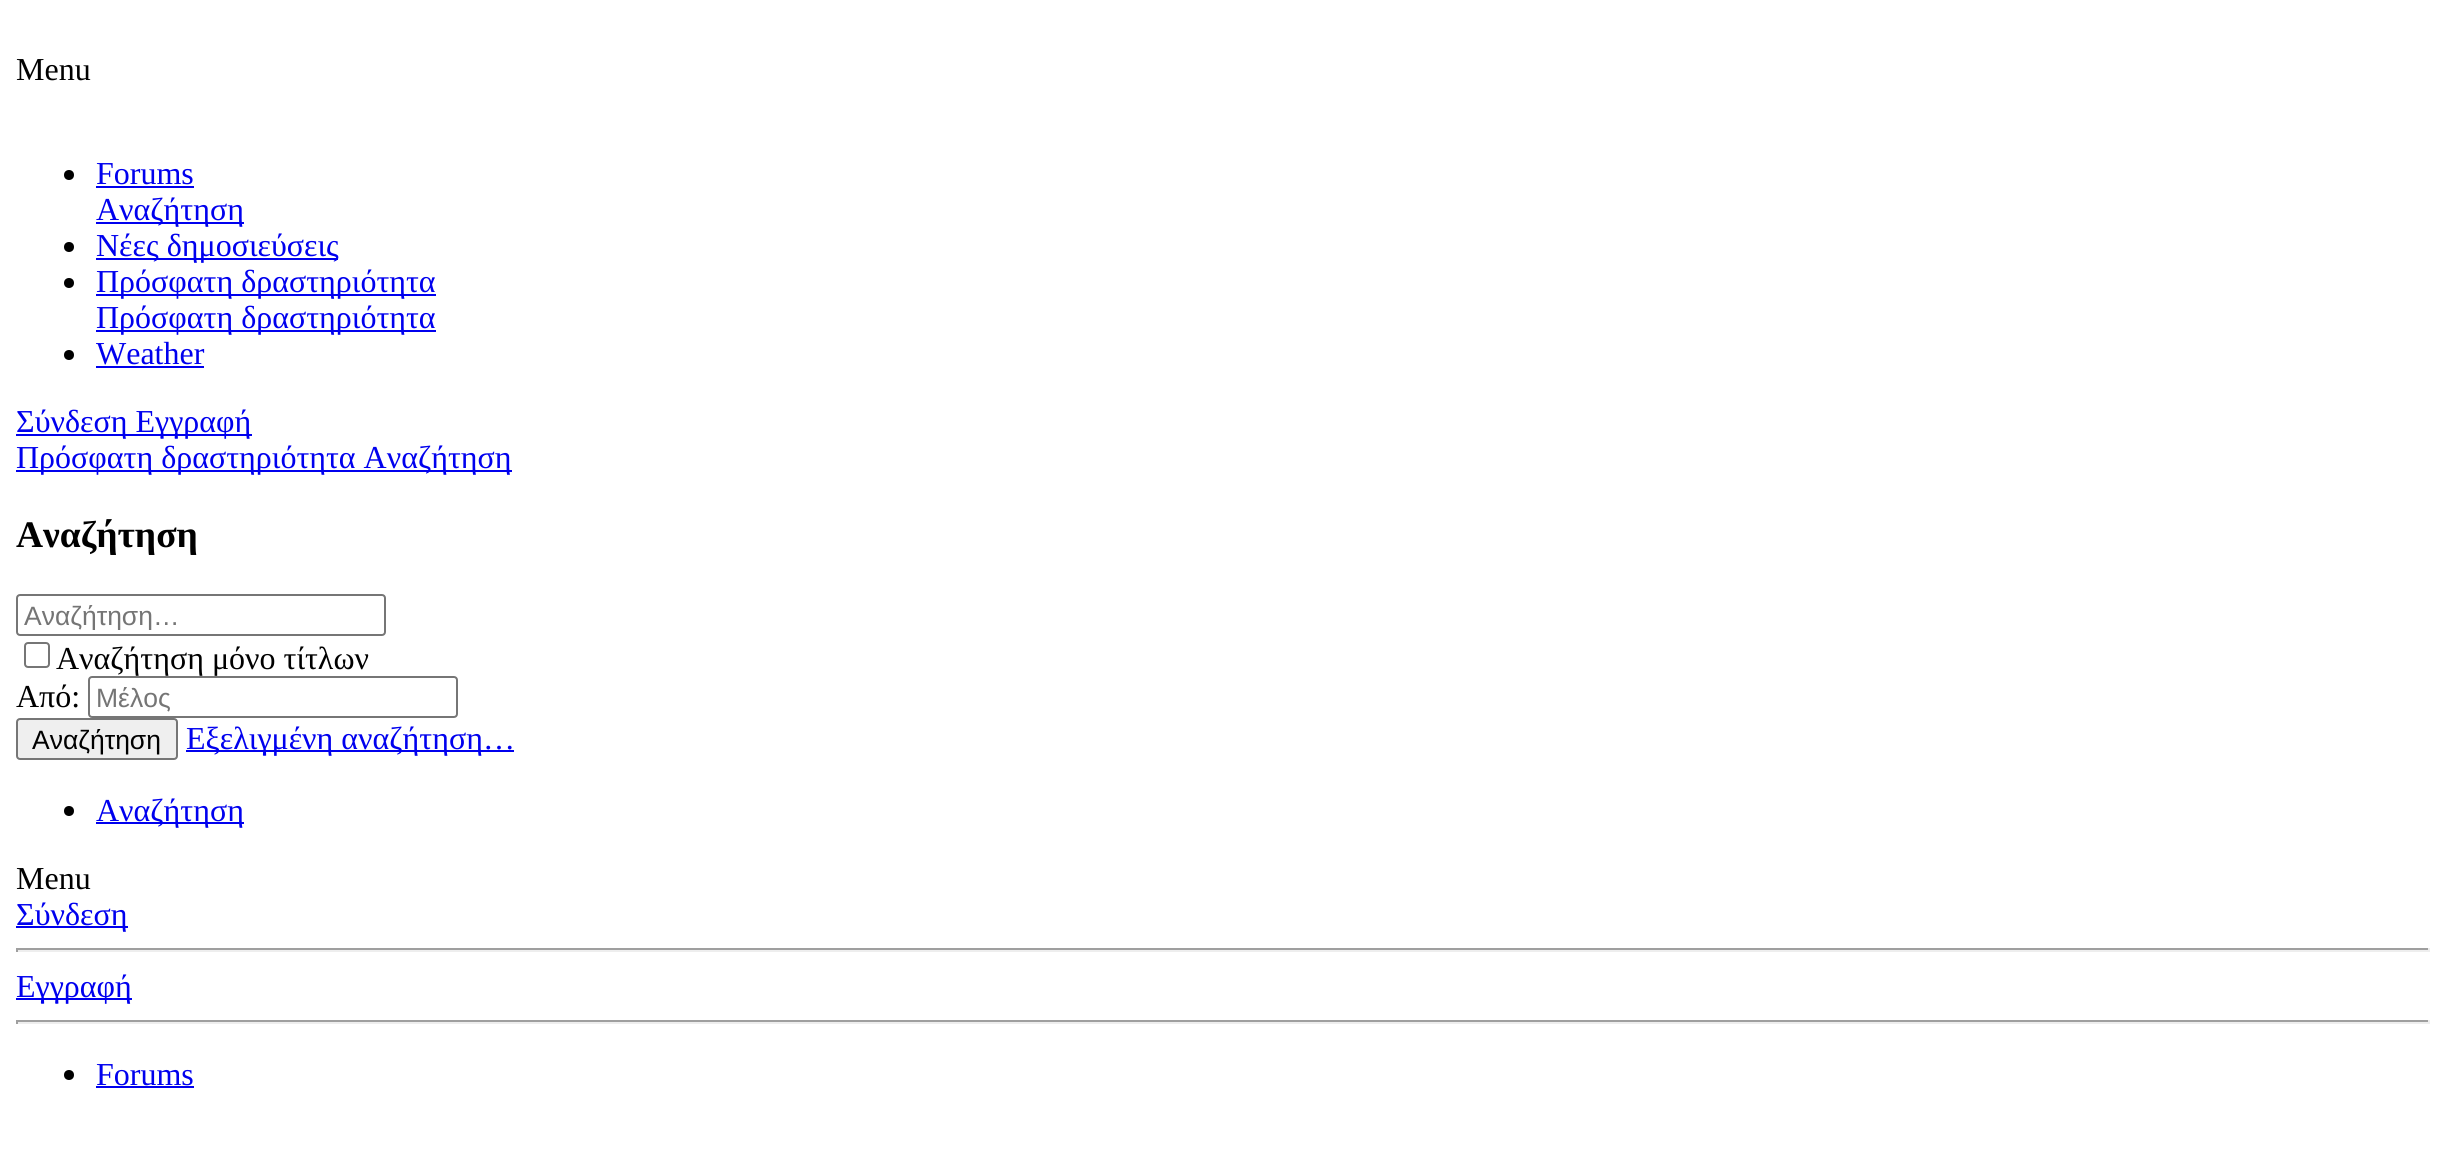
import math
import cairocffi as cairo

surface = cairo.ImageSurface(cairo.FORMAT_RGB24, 2445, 1163)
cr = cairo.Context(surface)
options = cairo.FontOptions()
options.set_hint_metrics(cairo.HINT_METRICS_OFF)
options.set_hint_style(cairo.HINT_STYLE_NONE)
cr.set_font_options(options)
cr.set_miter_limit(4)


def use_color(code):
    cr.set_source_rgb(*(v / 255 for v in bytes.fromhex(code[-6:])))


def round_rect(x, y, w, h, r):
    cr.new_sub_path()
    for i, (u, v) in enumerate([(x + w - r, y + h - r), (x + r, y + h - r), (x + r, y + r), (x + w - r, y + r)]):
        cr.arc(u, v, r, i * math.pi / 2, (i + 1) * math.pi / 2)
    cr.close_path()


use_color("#ffffff")
cr.paint()
cr.select_font_face("Liberation Serif")
cr.set_font_size(32)
use_color("#000000")
cr.move_to(16, 80)
cr.show_text("Menu")
cr.new_path()
cr.arc(69, 175, 5, 0, 2 * math.pi)
cr.fill()
use_color("#0000ee")
cr.move_to(96, 184)
cr.show_text("Forums")
cr.rectangle(96, 186, 98, 2)
cr.fill()
cr.rectangle(96, 222, 148, 2)
cr.fill()
cr.move_to(96, 220)
cr.show_text("Αναζήτηση")
use_color("#000000")
cr.new_path()
cr.arc(69, 247, 5, 0, 2 * math.pi)
cr.fill()
use_color("#0000ee")
cr.rectangle(96, 258, 242, 2)
cr.fill()
cr.move_to(96, 256)
cr.show_text("Νέες δημοσιεύσεις")
use_color("#000000")
cr.new_path()
cr.arc(69, 283, 5, 0, 2 * math.pi)
cr.fill()
use_color("#0000ee")
cr.rectangle(96, 294, 340, 2)
cr.fill()
cr.move_to(96, 292)
cr.show_text("Πρόσφατη δραστηριότητα")
cr.rectangle(96, 330, 340, 2)
cr.fill()
cr.move_to(96, 328)
cr.show_text("Πρόσφατη δραστηριότητα")
use_color("#000000")
cr.new_path()
cr.arc(69, 355, 5, 0, 2 * math.pi)
cr.fill()
use_color("#0000ee")
cr.move_to(96, 364)
cr.show_text("Weather")
cr.rectangle(96, 366, 108, 2)
cr.fill()
cr.rectangle(16, 434, 236, 2)
cr.fill()
cr.move_to(16, 432)
cr.show_text("Σύνδεση Εγγραφή")
cr.rectangle(16, 470, 496, 2)
cr.fill()
cr.move_to(16, 468)
cr.show_text("Πρόσφατη δραστηριότητα Αναζήτηση")
cr.select_font_face("Liberation Serif", cairo.FONT_SLANT_NORMAL, cairo.FONT_WEIGHT_BOLD)
cr.set_font_size(37.5)
use_color("#000000")
cr.move_to(16, 547)
cr.show_text("Αναζήτηση")
round_rect(17, 595, 368, 40, 3)
use_color("#767676")
cr.stroke()
cr.save()
cr.rectangle(24, 600, 354, 30)
cr.clip()
cr.select_font_face("Liberation Sans")
cr.set_font_size(26.5)
use_color("#757575")
cr.move_to(24, 625)
cr.show_text("Αναζήτηση…")
cr.restore()
round_rect(25, 643, 24, 24, 3)
cr.stroke()
cr.select_font_face("Liberation Serif")
cr.set_font_size(32)
use_color("#000000")
cr.move_to(56, 669)
cr.show_text("Αναζήτηση μόνο τίτλων")
cr.move_to(16, 707)
cr.show_text("Από:")
round_rect(89, 677, 368, 40, 3)
use_color("#767676")
cr.stroke()
cr.select_font_face("Liberation Sans")
cr.set_font_size(26.5)
use_color("#757575")
cr.move_to(96, 707)
cr.show_text("Μέλος")
use_color("#efefef")
round_rect(17, 719, 160, 40, 3)
cr.fill_preserve()
use_color("#767676")
cr.stroke()
use_color("#000000")
cr.move_to(32, 749)
cr.show_text("Αναζήτηση")
use_color("#0000ee")
cr.rectangle(186, 750, 328, 2)
cr.fill()
cr.select_font_face("Liberation Serif")
cr.set_font_size(32)
cr.move_to(186, 749)
cr.show_text("Εξελιγμένη αναζήτηση…")
use_color("#000000")
cr.new_path()
cr.arc(69, 811, 5, 0, 2 * math.pi)
cr.fill()
use_color("#0000ee")
cr.rectangle(96, 822, 148, 2)
cr.fill()
cr.move_to(96, 821)
cr.show_text("Αναζήτηση")
use_color("#000000")
cr.move_to(16, 889)
cr.show_text("Menu")
use_color("#0000ee")
cr.rectangle(16, 926, 112, 2)
cr.fill()
cr.move_to(16, 925)
cr.show_text("Σύνδεση")
use_color("#9f9f9f")
cr.rectangle(16, 948, 2414, 2)
cr.fill()
use_color("#eeeeee")
cr.rectangle(2428, 948, 2, 4)
cr.fill()
cr.rectangle(16, 950, 2414, 2)
cr.fill()
use_color("#9f9f9f")
cr.rectangle(16, 948, 2, 4)
cr.fill()
use_color("#0000ee")
cr.rectangle(16, 998, 116, 2)
cr.fill()
cr.move_to(16, 997)
cr.show_text("Εγγραφή")
use_color("#9f9f9f")
cr.rectangle(16, 1020, 2414, 2)
cr.fill()
use_color("#eeeeee")
cr.rectangle(2428, 1020, 2, 4)
cr.fill()
cr.rectangle(16, 1022, 2414, 2)
cr.fill()
use_color("#9f9f9f")
cr.rectangle(16, 1020, 2, 4)
cr.fill()
use_color("#000000")
cr.arc(69, 1075, 5, 0, 2 * math.pi)
cr.fill()
use_color("#0000ee")
cr.move_to(96, 1085)
cr.show_text("Forums")
cr.rectangle(96, 1086, 98, 2)
cr.fill()
surface.write_to_png("result.png")
